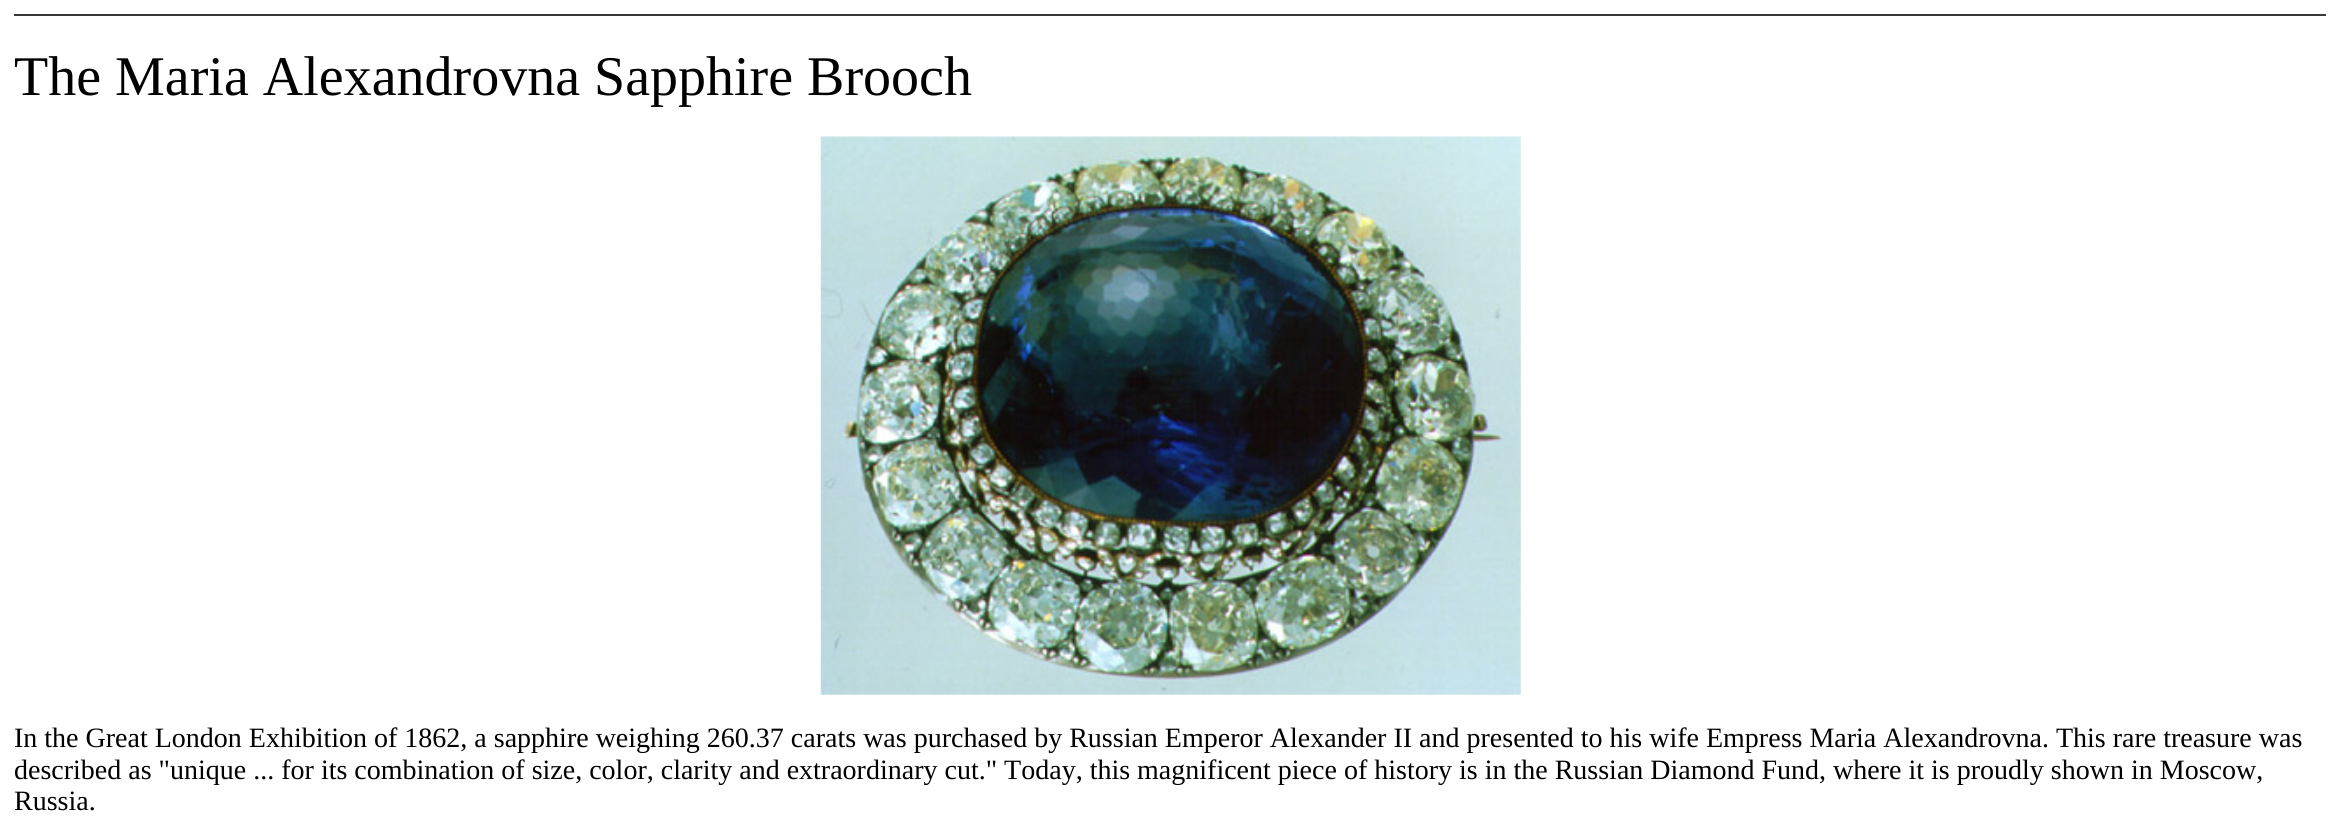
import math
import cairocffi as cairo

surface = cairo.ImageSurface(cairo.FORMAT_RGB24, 2339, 839)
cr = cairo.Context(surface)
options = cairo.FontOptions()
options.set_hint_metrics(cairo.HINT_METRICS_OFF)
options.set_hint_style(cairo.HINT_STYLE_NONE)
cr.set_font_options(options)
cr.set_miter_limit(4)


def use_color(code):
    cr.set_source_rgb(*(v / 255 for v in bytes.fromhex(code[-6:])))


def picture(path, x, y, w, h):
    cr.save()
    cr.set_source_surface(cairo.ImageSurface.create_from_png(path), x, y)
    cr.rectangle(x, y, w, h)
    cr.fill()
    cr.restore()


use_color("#ffffff")
cr.paint()
use_color("#393939")
cr.rectangle(14, 14, 2312, 2)
cr.fill()
cr.select_font_face("Liberation Serif")
cr.set_font_size(56)
use_color("#000000")
cr.move_to(14, 95)
cr.show_text("The Maria Alexandrovna Sapphire Brooch")
picture("img1.png", 820, 136, 701, 559)
cr.set_font_size(28)
cr.move_to(14, 747)
cr.show_text("In the Great London Exhibition of 1862, a sapphire weighing 260.37 carats was purchased by Russian Emperor Alexander II and presented to his wife Empress Maria Alexandrovna. This rare treasure was")
cr.move_to(14, 779)
cr.show_text("described as \"unique ... for its combination of size, color, clarity and extraordinary cut.\" Today, this magnificent piece of history is in the Russian Diamond Fund, where it is proudly shown in Moscow,")
cr.move_to(14, 810)
cr.show_text("Russia.")
surface.write_to_png("result.png")
